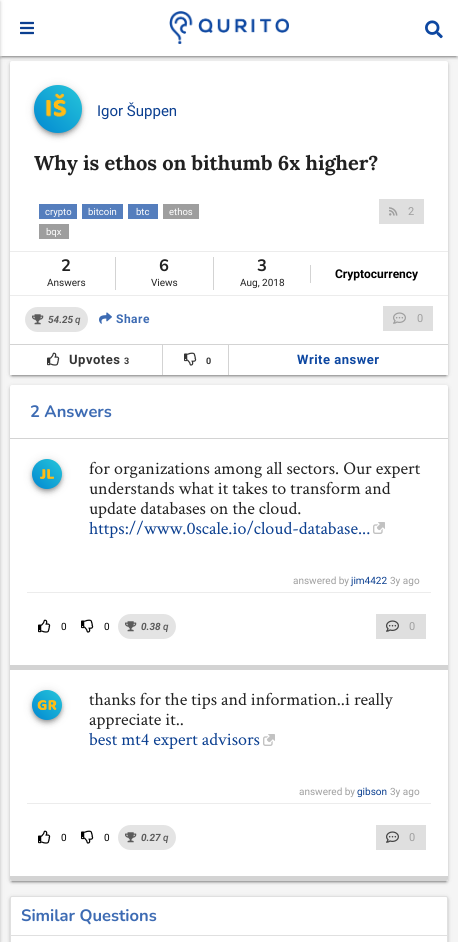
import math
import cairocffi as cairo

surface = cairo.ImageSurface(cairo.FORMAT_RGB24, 458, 942)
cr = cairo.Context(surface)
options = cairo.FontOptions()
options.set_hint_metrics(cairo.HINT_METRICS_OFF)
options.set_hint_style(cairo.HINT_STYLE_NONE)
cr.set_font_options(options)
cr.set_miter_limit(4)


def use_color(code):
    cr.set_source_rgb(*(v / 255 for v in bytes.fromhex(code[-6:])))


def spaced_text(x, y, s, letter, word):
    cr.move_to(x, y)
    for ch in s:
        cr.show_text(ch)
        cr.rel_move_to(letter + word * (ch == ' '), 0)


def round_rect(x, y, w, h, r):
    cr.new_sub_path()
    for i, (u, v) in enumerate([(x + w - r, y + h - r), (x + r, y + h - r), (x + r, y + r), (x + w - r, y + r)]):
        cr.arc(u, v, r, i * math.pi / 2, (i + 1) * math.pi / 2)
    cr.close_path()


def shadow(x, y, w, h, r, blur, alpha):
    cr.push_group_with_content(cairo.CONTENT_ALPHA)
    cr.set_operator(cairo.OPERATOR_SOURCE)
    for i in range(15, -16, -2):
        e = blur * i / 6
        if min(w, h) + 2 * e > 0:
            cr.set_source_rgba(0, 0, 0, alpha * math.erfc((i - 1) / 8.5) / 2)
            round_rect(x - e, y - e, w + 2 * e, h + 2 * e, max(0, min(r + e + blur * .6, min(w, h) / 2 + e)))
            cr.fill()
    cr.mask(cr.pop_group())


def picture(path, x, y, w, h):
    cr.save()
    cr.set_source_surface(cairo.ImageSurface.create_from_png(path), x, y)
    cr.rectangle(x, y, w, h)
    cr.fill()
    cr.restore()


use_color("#f5f5f5")
cr.paint()
use_color("#000000")
shadow(2, 5, 454, 52, 0, 0.5, 0.2)
shadow(12, 66, 434, 310, 0, 0.5, 0.2)
shadow(10, 62, 438, 314, 2, 2.5, 0.12)
shadow(10, 63, 438, 314, 2, 1, 0.14)
use_color("#ffffff")
round_rect(10, 61, 438, 314, 2)
cr.fill()
use_color("#000000")
shadow(0, 1, 458, 56, 0, 2.5, 0.12)
shadow(0, 2, 458, 56, 0, 1, 0.14)
use_color("#ffffff")
cr.rectangle(0, 0, 458, 56)
cr.fill()
picture("img1.png", 169, 11, 120, 33)
picture("img2.png", 425, 20, 18, 19)
use_color("#000000")
shadow(-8, 1, 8, 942, 0, 2.5, 0.12)
shadow(-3, 2, 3, 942, 0, 1, 0.14)
picture("img3.png", 20, 21, 14, 14)
shadow(34, 86, 48, 48, 24, 5, 0.12)
shadow(34, 89, 48, 48, 24, 2.5, 0.14)
shadow(35, 88, 46, 46, 23, 2, 0.3)
gradient = cairo.LinearGradient(34, 133, 82, 85)
gradient.add_color_stop_rgba(0, 0.008, 0.533, 0.82, 1)
gradient.add_color_stop_rgba(1, 0.149, 0.776, 0.855, 1)
cr.set_source(gradient)
cr.arc(58, 109, 24, 0, 2 * math.pi)
cr.fill()
picture("img4.png", 45, 93, 22, 24)
cr.select_font_face("Roboto")
cr.set_font_size(15)
use_color("#0b3f90")
cr.move_to(97, 116)
cr.show_text("Igor Šuppen")
cr.select_font_face("Lora", cairo.FONT_SLANT_NORMAL, cairo.FONT_WEIGHT_BOLD)
cr.set_font_size(20)
use_color("#212121")
cr.move_to(34, 170)
cr.show_text("Why is ethos on bithumb 6x higher?")
use_color("#557ebd")
cr.rectangle(39, 204, 38, 15)
cr.fill()
cr.select_font_face("Roboto")
cr.set_font_size(9.5)
use_color("#ffffff")
cr.move_to(45, 215)
cr.show_text("crypto")
use_color("#557ebd")
cr.rectangle(82, 204, 41, 15)
cr.fill()
use_color("#ffffff")
cr.move_to(88, 215)
cr.show_text("bitcoin")
use_color("#557ebd")
cr.rectangle(128, 204, 30, 15)
cr.fill()
use_color("#ffffff")
cr.move_to(136, 215)
cr.show_text("btc")
use_color("#9e9e9e")
cr.rectangle(163, 204, 36, 15)
cr.fill()
use_color("#ffffff")
cr.move_to(169, 215)
cr.show_text("ethos")
use_color("#9e9e9e")
cr.rectangle(39, 224, 30, 15)
cr.fill()
use_color("#ffffff")
cr.move_to(46, 235)
cr.show_text("bqx")
use_color("#dfdfdf")
cr.rectangle(379, 199, 45, 25)
cr.fill()
picture("img5.png", 389, 207, 9, 9)
cr.set_font_size(11)
use_color("#9f9f9f")
spaced_text(408, 215, "2", 0.5, 0)
use_color("#ececec")
cr.rectangle(10, 251, 438, 1)
cr.fill()
cr.select_font_face("Nunito", cairo.FONT_SLANT_NORMAL, cairo.FONT_WEIGHT_BOLD)
cr.set_font_size(16.5)
use_color("#212121")
cr.move_to(61, 271)
cr.show_text("2")
cr.select_font_face("Roboto")
cr.set_font_size(10)
cr.move_to(47, 286)
cr.show_text("Answers")
use_color("#d3d3d3")
cr.rectangle(115, 257, 1, 33)
cr.fill()
cr.select_font_face("Nunito", cairo.FONT_SLANT_NORMAL, cairo.FONT_WEIGHT_BOLD)
cr.set_font_size(16.5)
use_color("#212121")
cr.move_to(159, 271)
cr.show_text("6")
cr.select_font_face("Roboto")
cr.set_font_size(10)
cr.move_to(151, 286)
cr.show_text("Views")
use_color("#d3d3d3")
cr.rectangle(213, 257, 1, 33)
cr.fill()
cr.select_font_face("Nunito", cairo.FONT_SLANT_NORMAL, cairo.FONT_WEIGHT_BOLD)
cr.set_font_size(16.5)
use_color("#212121")
cr.move_to(257, 271)
cr.show_text("3")
cr.select_font_face("Roboto")
cr.set_font_size(10)
cr.move_to(240, 286)
cr.show_text("Aug, 2018")
use_color("#d3d3d3")
cr.rectangle(310, 265, 1, 18)
cr.fill()
cr.select_font_face("Roboto", cairo.FONT_SLANT_NORMAL, cairo.FONT_WEIGHT_BOLD)
cr.set_font_size(12)
use_color("#000000")
cr.move_to(335, 278)
cr.show_text("Cryptocurrency")
use_color("#ececec")
cr.rectangle(10, 295, 438, 1)
cr.fill()
use_color("#e4e4e4")
round_rect(25, 307, 63, 25, 12.5)
cr.fill()
picture("img6.png", 32, 314, 12, 11)
cr.select_font_face("Roboto", cairo.FONT_SLANT_ITALIC, cairo.FONT_WEIGHT_BOLD)
cr.set_font_size(10)
use_color("#5b5b5b")
cr.move_to(48, 323)
cr.show_text("54.25")
cr.select_font_face("Roboto Medium", cairo.FONT_SLANT_ITALIC)
cr.move_to(75, 323)
cr.show_text("q")
picture("img7.png", 99, 312, 13, 12)
cr.select_font_face("Roboto", cairo.FONT_SLANT_NORMAL, cairo.FONT_WEIGHT_BOLD)
cr.set_font_size(12)
use_color("#3d6bb3")
spaced_text(116, 323, "Share", 0.5, 0)
use_color("#dfdfdf")
cr.rectangle(383, 306, 50, 25)
cr.fill()
picture("img8.png", 393, 312, 13, 12)
cr.select_font_face("Roboto")
cr.set_font_size(11)
use_color("#9f9f9f")
spaced_text(417, 322, "0", 0.5, 0)
use_color("#d3d3d3")
cr.rectangle(10, 344, 438, 1)
cr.fill()
use_color("#ffffff")
cr.rectangle(10, 373, 2, 2)
cr.fill()
use_color("#d3d3d3")
cr.rectangle(162, 345, 1, 30)
cr.fill()
picture("img9.png", 47, 352, 13, 14)
cr.select_font_face("Roboto", cairo.FONT_SLANT_NORMAL, cairo.FONT_WEIGHT_BOLD)
cr.set_font_size(13)
use_color("#343434")
spaced_text(69, 364, "Upvotes", 0.5, 0)
cr.set_font_size(9)
spaced_text(124, 364, "3", 0.5, 0)
use_color("#d3d3d3")
cr.rectangle(228, 345, 1, 30)
cr.fill()
picture("img10.png", 184, 352, 13, 14)
use_color("#343434")
spaced_text(206, 364, "0", 0.5, 0)
use_color("#ffffff")
cr.rectangle(446, 373, 2, 2)
cr.fill()
cr.set_font_size(13)
use_color("#0d47a1")
spaced_text(297, 364, "Write answer", 0.5, 0)
use_color("#000000")
shadow(12, 390, 434, 492, 0, 0.5, 0.2)
shadow(10, 386, 438, 496, 2, 2.5, 0.12)
shadow(10, 387, 438, 496, 2, 1, 0.14)
use_color("#ffffff")
round_rect(10, 385, 438, 496, 2)
cr.fill()
use_color("#d3d3d3")
cr.rectangle(10, 438, 438, 1)
cr.fill()
cr.select_font_face("Nunito", cairo.FONT_SLANT_NORMAL, cairo.FONT_WEIGHT_BOLD)
cr.set_font_size(16.5)
use_color("#3d6bb3")
cr.move_to(30, 417)
cr.show_text("2 Answers")
use_color("#d3d3d3")
cr.rectangle(10, 665, 438, 5)
cr.fill()
use_color("#000000")
shadow(32, 460, 30, 30, 15, 5, 0.12)
shadow(32, 463, 30, 30, 15, 2.5, 0.14)
shadow(33, 462, 28, 28, 14, 2, 0.3)
gradient = cairo.LinearGradient(32, 489, 62, 459)
gradient.add_color_stop_rgba(0, 0.008, 0.533, 0.82, 1)
gradient.add_color_stop_rgba(1, 0.149, 0.776, 0.855, 1)
cr.set_source(gradient)
cr.arc(47, 474, 15, 0, 2 * math.pi)
cr.fill()
picture("img11.png", 40, 469, 14, 10)
cr.select_font_face("Crimson Text")
cr.set_font_size(18)
use_color("#212121")
cr.move_to(89, 474)
cr.show_text("for organizations among all sectors. Our expert")
cr.move_to(89, 494)
cr.show_text("understands what it takes to transform and")
cr.move_to(89, 514)
cr.show_text("update databases on the cloud.")
use_color("#0b3f90")
cr.move_to(89, 534)
cr.show_text("https://www.0scale.io/cloud-database...")
picture("img12.png", 373, 522, 12, 12)
cr.select_font_face("Roboto")
cr.set_font_size(10)
use_color("#9f9f9f")
cr.move_to(293, 584)
cr.show_text("answered by")
use_color("#0b3f90")
cr.move_to(351, 584)
cr.show_text("jim4422")
use_color("#9f9f9f")
cr.move_to(390, 584)
cr.show_text("3y ago")
use_color("#ececec")
cr.rectangle(27, 592, 404, 1)
cr.fill()
picture("img13.png", 38, 619, 13, 14)
use_color("#000000")
cr.move_to(61, 630)
cr.show_text("0")
picture("img14.png", 81, 619, 13, 14)
cr.move_to(104, 630)
cr.show_text("0")
use_color("#e4e4e4")
round_rect(118, 614, 58, 25, 12.5)
cr.fill()
picture("img6.png", 125, 621, 12, 11)
cr.select_font_face("Roboto", cairo.FONT_SLANT_ITALIC, cairo.FONT_WEIGHT_BOLD)
use_color("#5b5b5b")
cr.move_to(141, 630)
cr.show_text("0.38")
cr.select_font_face("Roboto Medium", cairo.FONT_SLANT_ITALIC)
cr.move_to(163, 630)
cr.show_text("q")
use_color("#dfdfdf")
cr.rectangle(376, 614, 50, 25)
cr.fill()
picture("img15.png", 386, 620, 13, 12)
cr.select_font_face("Roboto")
cr.set_font_size(11)
use_color("#9f9f9f")
spaced_text(409, 630, "0", 0.5, 0)
use_color("#ffffff")
cr.new_path()
cr.move_to(10, 670)
cr.line_to(448, 670)
cr.line_to(448, 879)
cr.curve_to(448, 880, 447, 881, 446, 881)
cr.line_to(12, 881)
cr.curve_to(11, 881, 10, 880, 10, 879)
cr.close_path()
cr.fill()
use_color("#d3d3d3")
cr.new_path()
cr.move_to(10, 876)
cr.line_to(448, 876)
cr.line_to(448, 879)
cr.curve_to(448, 880, 447, 881, 446, 881)
cr.line_to(12, 881)
cr.curve_to(11, 881, 10, 880, 10, 879)
cr.close_path()
cr.fill()
use_color("#000000")
shadow(32, 691, 30, 30, 15, 5, 0.12)
shadow(32, 694, 30, 30, 15, 2.5, 0.14)
shadow(33, 693, 28, 28, 14, 2, 0.3)
gradient = cairo.LinearGradient(32, 720, 62, 690)
gradient.add_color_stop_rgba(0, 0.008, 0.533, 0.82, 1)
gradient.add_color_stop_rgba(1, 0.149, 0.776, 0.855, 1)
cr.set_source(gradient)
cr.arc(47, 705, 15, 0, 2 * math.pi)
cr.fill()
picture("img16.png", 37, 700, 20, 10)
cr.select_font_face("Crimson Text")
cr.set_font_size(18)
use_color("#212121")
cr.move_to(89, 705)
cr.show_text("thanks for the tips and information..i really")
cr.move_to(89, 725)
cr.show_text("appreciate it..")
use_color("#0b3f90")
cr.move_to(89, 745)
cr.show_text("best mt4 expert advisors")
picture("img12.png", 263, 734, 12, 12)
cr.select_font_face("Roboto")
cr.set_font_size(10)
use_color("#9f9f9f")
cr.move_to(299, 795)
cr.show_text("answered by")
use_color("#0b3f90")
cr.move_to(357, 795)
cr.show_text("gibson")
use_color("#9f9f9f")
cr.move_to(390, 795)
cr.show_text("3y ago")
use_color("#ececec")
cr.rectangle(27, 803, 404, 1)
cr.fill()
picture("img13.png", 38, 830, 13, 14)
use_color("#000000")
cr.move_to(61, 841)
cr.show_text("0")
picture("img14.png", 81, 830, 13, 14)
cr.move_to(104, 841)
cr.show_text("0")
use_color("#e4e4e4")
round_rect(118, 825, 58, 25, 12.5)
cr.fill()
picture("img6.png", 125, 832, 12, 11)
cr.select_font_face("Roboto", cairo.FONT_SLANT_ITALIC, cairo.FONT_WEIGHT_BOLD)
use_color("#5b5b5b")
cr.move_to(141, 841)
cr.show_text("0.27")
cr.select_font_face("Roboto Medium", cairo.FONT_SLANT_ITALIC)
cr.move_to(163, 841)
cr.show_text("q")
use_color("#dfdfdf")
cr.rectangle(376, 825, 50, 25)
cr.fill()
picture("img15.png", 386, 831, 13, 12)
cr.select_font_face("Roboto")
cr.set_font_size(11)
use_color("#9f9f9f")
spaced_text(409, 841, "0", 0.5, 0)
use_color("#000000")
shadow(10, 897, 438, 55, 2, 2.5, 0.12)
shadow(10, 898, 438, 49, 2, 1, 0.14)
round_rect(10.5, 896.5, 437, 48, 1.5)
use_color("#e0e0e0")
cr.set_line_width(1)
cr.stroke()
use_color("#ffffff")
cr.new_path()
cr.move_to(12, 897)
cr.line_to(446, 897)
cr.curve_to(446.5, 897, 447, 897.5, 447, 898)
cr.line_to(447, 936)
cr.line_to(11, 936)
cr.line_to(11, 898)
cr.curve_to(11, 897.5, 11.5, 897, 12, 897)
cr.close_path()
cr.fill()
use_color("#e0e0e0")
cr.rectangle(11, 935, 436, 1)
cr.fill()
cr.select_font_face("Nunito", cairo.FONT_SLANT_NORMAL, cairo.FONT_WEIGHT_BOLD)
cr.set_font_size(16.5)
use_color("#3d6bb3")
cr.move_to(21, 921)
cr.show_text("Similar Questions")
use_color("#ffffff")
cr.rectangle(11, 936, 436, 6)
cr.fill()
surface.write_to_png("result.png")
